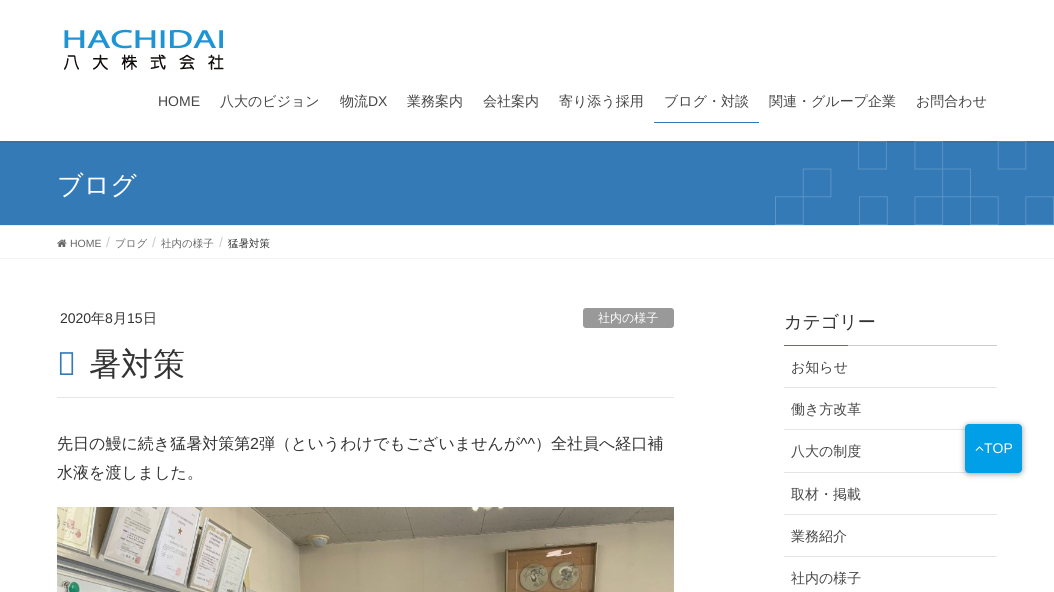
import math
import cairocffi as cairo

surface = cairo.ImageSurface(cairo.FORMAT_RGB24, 1054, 592)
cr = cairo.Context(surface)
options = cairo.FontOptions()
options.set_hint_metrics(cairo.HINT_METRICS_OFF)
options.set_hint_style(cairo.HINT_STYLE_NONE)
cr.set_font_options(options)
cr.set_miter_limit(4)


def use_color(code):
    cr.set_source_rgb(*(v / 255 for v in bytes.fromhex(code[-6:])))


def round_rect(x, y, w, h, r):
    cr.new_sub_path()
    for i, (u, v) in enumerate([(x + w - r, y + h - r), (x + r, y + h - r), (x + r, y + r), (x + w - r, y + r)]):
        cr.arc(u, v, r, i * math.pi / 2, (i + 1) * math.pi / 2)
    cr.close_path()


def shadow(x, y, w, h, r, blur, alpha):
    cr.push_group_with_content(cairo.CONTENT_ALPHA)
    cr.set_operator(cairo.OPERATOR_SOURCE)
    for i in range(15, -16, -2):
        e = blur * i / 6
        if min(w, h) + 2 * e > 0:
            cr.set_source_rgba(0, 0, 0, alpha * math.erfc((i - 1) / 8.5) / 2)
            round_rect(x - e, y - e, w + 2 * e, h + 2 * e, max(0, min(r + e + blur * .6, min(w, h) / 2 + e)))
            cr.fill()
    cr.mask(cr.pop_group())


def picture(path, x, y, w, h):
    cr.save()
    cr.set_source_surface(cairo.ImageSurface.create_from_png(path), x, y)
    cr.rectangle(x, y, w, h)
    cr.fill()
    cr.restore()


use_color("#ffffff")
cr.paint()
use_color("#337ab7")
cr.rectangle(0, 141, 1054, 84)
cr.fill()
picture("img2.png", 775, 141, 279, 84)
cr.save()
cr.rectangle(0, 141, 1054, 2)
cr.clip()
use_color("#000000")
shadow(0, 1, 1054, 141, 0, 1.5, 0.1)
cr.restore()
picture("img1.png", 61, 27, 163, 43)
cr.select_font_face("Liberation Sans")
cr.set_font_size(14)
use_color("#464646")
cr.move_to(158, 106)
cr.show_text("HOME")
cr.select_font_face("WenQuanYi Zen Hei Medium")
cr.move_to(220, 106)
cr.show_text("八大のビジョン")
cr.move_to(340, 106)
cr.show_text("物流")
cr.select_font_face("Liberation Sans")
cr.move_to(368, 106)
cr.show_text("DX")
cr.select_font_face("WenQuanYi Zen Hei Medium")
cr.move_to(407, 106)
cr.show_text("業務案内")
cr.move_to(483, 106)
cr.show_text("会社案内")
cr.move_to(559, 106)
cr.show_text("寄り添う採用")
cr.move_to(664, 106)
cr.show_text("ブログ・対談")
use_color("#337ab7")
cr.rectangle(654, 122, 105, 1)
cr.fill()
use_color("#464646")
cr.move_to(769, 106)
cr.show_text("関連・グループ企業")
cr.move_to(916, 106)
cr.show_text("お問合わせ")
use_color("#eeeeee")
cr.rectangle(0, 225, 1054, 1)
cr.fill()
cr.set_font_size(26)
use_color("#ffffff")
cr.move_to(57, 194)
cr.show_text("ブログ")
use_color("#f3f3f3")
cr.rectangle(0, 258, 1054, 1)
cr.fill()
picture("img3.png", 57, 239, 10, 8)
cr.select_font_face("Liberation Sans")
cr.set_font_size(10.5)
use_color("#666666")
cr.move_to(70, 247)
cr.show_text("HOME")
cr.set_font_size(14)
use_color("#cccccc")
cr.move_to(106, 247)
cr.show_text("/")
cr.select_font_face("WenQuanYi Zen Hei Medium")
cr.set_font_size(10.5)
use_color("#666666")
cr.move_to(115, 247)
cr.show_text("ブログ")
cr.select_font_face("Liberation Sans")
cr.set_font_size(14)
use_color("#cccccc")
cr.move_to(152, 247)
cr.show_text("/")
cr.select_font_face("WenQuanYi Zen Hei Medium")
cr.set_font_size(10.5)
use_color("#666666")
cr.move_to(161, 247)
cr.show_text("社内の様子")
cr.select_font_face("Liberation Sans")
cr.set_font_size(14)
use_color("#cccccc")
cr.move_to(219, 247)
cr.show_text("/")
cr.select_font_face("WenQuanYi Zen Hei Medium")
cr.set_font_size(10.5)
use_color("#333333")
cr.move_to(228, 247)
cr.show_text("猛暑対策")
use_color("#e5e5e5")
cr.rectangle(57, 397, 617, 1)
cr.fill()
cr.select_font_face("Liberation Sans")
cr.set_font_size(14)
use_color("#333333")
cr.move_to(60, 323)
cr.show_text("2020")
cr.select_font_face("WenQuanYi Zen Hei Medium")
cr.move_to(91, 323)
cr.show_text("年")
cr.select_font_face("Liberation Sans")
cr.move_to(105, 323)
cr.show_text("8")
cr.select_font_face("WenQuanYi Zen Hei Medium")
cr.move_to(113, 323)
cr.show_text("月")
cr.select_font_face("Liberation Sans")
cr.move_to(127, 323)
cr.show_text("15")
cr.select_font_face("WenQuanYi Zen Hei Medium")
cr.move_to(143, 323)
cr.show_text("日")
use_color("#999999")
round_rect(583, 308, 91, 20, 3)
cr.fill()
cr.set_font_size(12)
use_color("#ffffff")
cr.move_to(598, 322)
cr.show_text("社内の様子")
cr.select_font_face("Noto Sans Medium")
cr.set_font_size(32)
use_color("#337ab7")
cr.move_to(57, 375)
cr.show_text("猛")
cr.select_font_face("WenQuanYi Zen Hei Medium")
use_color("#333333")
cr.move_to(89, 375)
cr.show_text("暑対策")
cr.set_font_size(16)
cr.move_to(57, 449)
cr.show_text("先日の鰻に続き猛暑対策第")
cr.select_font_face("Liberation Sans")
cr.move_to(250, 449)
cr.show_text("2")
cr.select_font_face("WenQuanYi Zen Hei Medium")
cr.move_to(259, 449)
cr.show_text("弾（というわけでもございませんが")
cr.select_font_face("Liberation Sans")
cr.move_to(520, 449)
cr.show_text("^^")
cr.select_font_face("WenQuanYi Zen Hei Medium")
cr.move_to(535, 449)
cr.show_text("）全社員へ経口補")
cr.move_to(57, 478)
cr.show_text("水液を渡しました。")
picture("img4.png", 57, 507, 617, 85)
use_color("#cccccc")
cr.rectangle(848, 345, 149, 1)
cr.fill()
cr.set_font_size(18)
use_color("#333333")
cr.move_to(784, 328)
cr.show_text("カテゴリー")
use_color("#337ab7")
cr.rectangle(784, 345, 64, 1)
cr.fill()
use_color("#e5e5e5")
cr.rectangle(784, 387, 213, 1)
cr.fill()
cr.set_font_size(14)
use_color("#464646")
cr.move_to(791, 372)
cr.show_text("お知らせ")
use_color("#e5e5e5")
cr.rectangle(784, 429, 181, 1)
cr.fill()
use_color("#464646")
cr.move_to(791, 414)
cr.show_text("働き方改革")
use_color("#e5e5e5")
cr.rectangle(784, 472, 185, 1)
cr.fill()
use_color("#464646")
cr.move_to(791, 456)
cr.show_text("八大の制度")
use_color("#e5e5e5")
cr.rectangle(784, 514, 213, 1)
cr.fill()
use_color("#464646")
cr.move_to(791, 499)
cr.show_text("取材・掲載")
use_color("#e5e5e5")
cr.rectangle(784, 556, 213, 1)
cr.fill()
use_color("#464646")
cr.move_to(791, 541)
cr.show_text("業務紹介")
cr.move_to(791, 583)
cr.show_text("社内の様子")
use_color("#000000")
shadow(965, 425, 57, 49, 4, 3, 0.4)
use_color("#009fe8")
round_rect(965, 424, 57, 49, 4)
cr.fill()
picture("img5.png", 975, 446, 9, 5)
cr.select_font_face("Liberation Sans")
use_color("#ffffff")
cr.move_to(984, 453)
cr.show_text("TOP")
surface.write_to_png("result.png")
